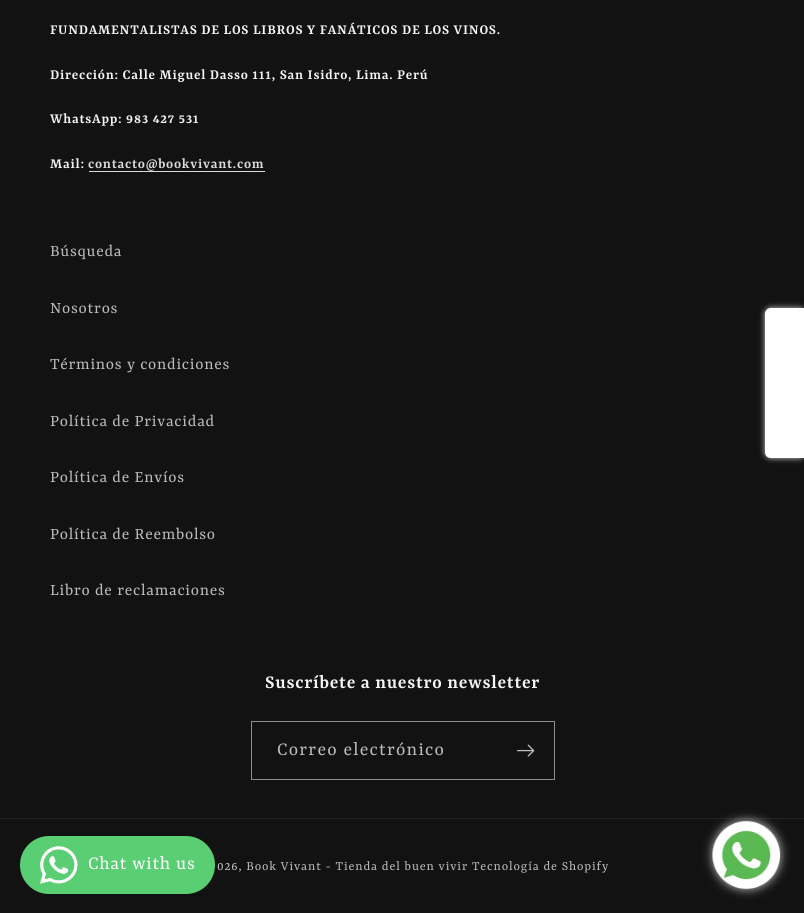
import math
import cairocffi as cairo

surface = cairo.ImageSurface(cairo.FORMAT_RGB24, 804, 913)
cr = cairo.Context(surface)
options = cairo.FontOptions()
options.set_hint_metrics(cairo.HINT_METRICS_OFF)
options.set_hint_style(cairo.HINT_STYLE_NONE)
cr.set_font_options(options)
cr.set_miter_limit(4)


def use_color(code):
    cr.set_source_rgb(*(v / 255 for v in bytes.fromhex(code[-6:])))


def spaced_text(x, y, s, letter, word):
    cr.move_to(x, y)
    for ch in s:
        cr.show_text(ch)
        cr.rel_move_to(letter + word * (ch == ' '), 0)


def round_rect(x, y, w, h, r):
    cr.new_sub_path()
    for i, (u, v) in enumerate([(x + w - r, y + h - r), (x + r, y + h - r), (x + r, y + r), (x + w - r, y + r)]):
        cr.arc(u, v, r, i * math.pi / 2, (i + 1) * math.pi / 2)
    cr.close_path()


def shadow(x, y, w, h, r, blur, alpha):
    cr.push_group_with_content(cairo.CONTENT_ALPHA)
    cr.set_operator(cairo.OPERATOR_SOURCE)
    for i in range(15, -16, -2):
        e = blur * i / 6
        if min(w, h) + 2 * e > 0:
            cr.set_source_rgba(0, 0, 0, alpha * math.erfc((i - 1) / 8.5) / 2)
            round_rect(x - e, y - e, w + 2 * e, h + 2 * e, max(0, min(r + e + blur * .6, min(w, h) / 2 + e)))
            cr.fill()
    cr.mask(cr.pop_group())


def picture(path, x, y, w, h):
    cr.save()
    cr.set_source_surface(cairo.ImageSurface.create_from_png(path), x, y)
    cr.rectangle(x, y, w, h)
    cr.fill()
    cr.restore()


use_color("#121212")
cr.paint()
cr.select_font_face("Rasa SemiBold")
cr.set_font_size(15)
use_color("#f3f3f3")
spaced_text(50, 34, "FUNDAMENTALISTAS DE LOS LIBROS Y FANÁTICOS DE LOS VINOS.", 0.75, 0)
spaced_text(50, 79, "Dirección: Calle Miguel Dasso 111, San Isidro, Lima. Perú", 0.75, 0)
spaced_text(50, 123, "WhatsApp: 983 427 531", 0.75, 0)
spaced_text(50, 168, "Mail:", 0.75, 0)
use_color("#dbdbdb")
spaced_text(88, 168, "contacto@bookvivant.com", 0.75, 0)
cr.rectangle(89, 171, 176, 1)
cr.fill()
cr.select_font_face("Rasa")
cr.set_font_size(17.5)
use_color("#bbbbbb")
spaced_text(50, 256, "Búsqueda", 0.75, 0)
spaced_text(50, 313, "Nosotros", 0.75, 0)
spaced_text(50, 369, "Términos y condiciones", 0.75, 0)
spaced_text(50, 426, "Política de Privacidad", 0.75, 0)
spaced_text(50, 482, "Política de Envíos", 0.75, 0)
spaced_text(50, 539, "Política de Reembolso", 0.75, 0)
spaced_text(50, 595, "Libro de reclamaciones", 0.75, 0)
cr.select_font_face("Rasa SemiBold")
cr.set_font_size(20)
use_color("#f3f3f3")
spaced_text(265, 688, "Suscríbete a nuestro newsletter", 0.75, 0)
cr.rectangle(251.5, 721.5, 303, 58)
use_color("#8e8e8e")
cr.set_line_width(1)
cr.stroke()
cr.select_font_face("Rasa")
use_color("#bbbbbb")
spaced_text(277, 755, "Correo electrónico", 1.25, 0)
picture("img1.png", 517, 744, 18, 13)
use_color("#242424")
cr.rectangle(0, 818, 804, 1)
cr.fill()
cr.set_font_size(13.75)
use_color("#bbbbbb")
spaced_text(217, 870, "026, Book Vivant - Tienda del buen vivir Tecnología de Shopify", 0.88, 0)
use_color("#d3d3d3")
shadow(765, 308, 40, 150, 6, 3, 1)
use_color("#ffffff")
cr.new_path()
cr.move_to(771, 308)
cr.line_to(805, 308)
cr.line_to(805, 458)
cr.line_to(771, 458)
cr.curve_to(767.5, 458, 765, 455.5, 765, 452)
cr.line_to(765, 314)
cr.curve_to(765, 310.5, 767.5, 308, 771, 308)
cr.close_path()
cr.fill()
use_color("#59ce72")
round_rect(20, 836, 195, 58, 29)
cr.fill()
picture("img2.png", 40, 846, 38, 38)
cr.set_font_size(20)
use_color("#ffffff")
spaced_text(88, 869, "Chat with us", 0.75, 0)
use_color("#c2c2c2")
shadow(713, 821, 67, 68, 33.5, 5, 1)
picture("img3.png", 712, 821, 68, 68)
surface.write_to_png("result.png")
